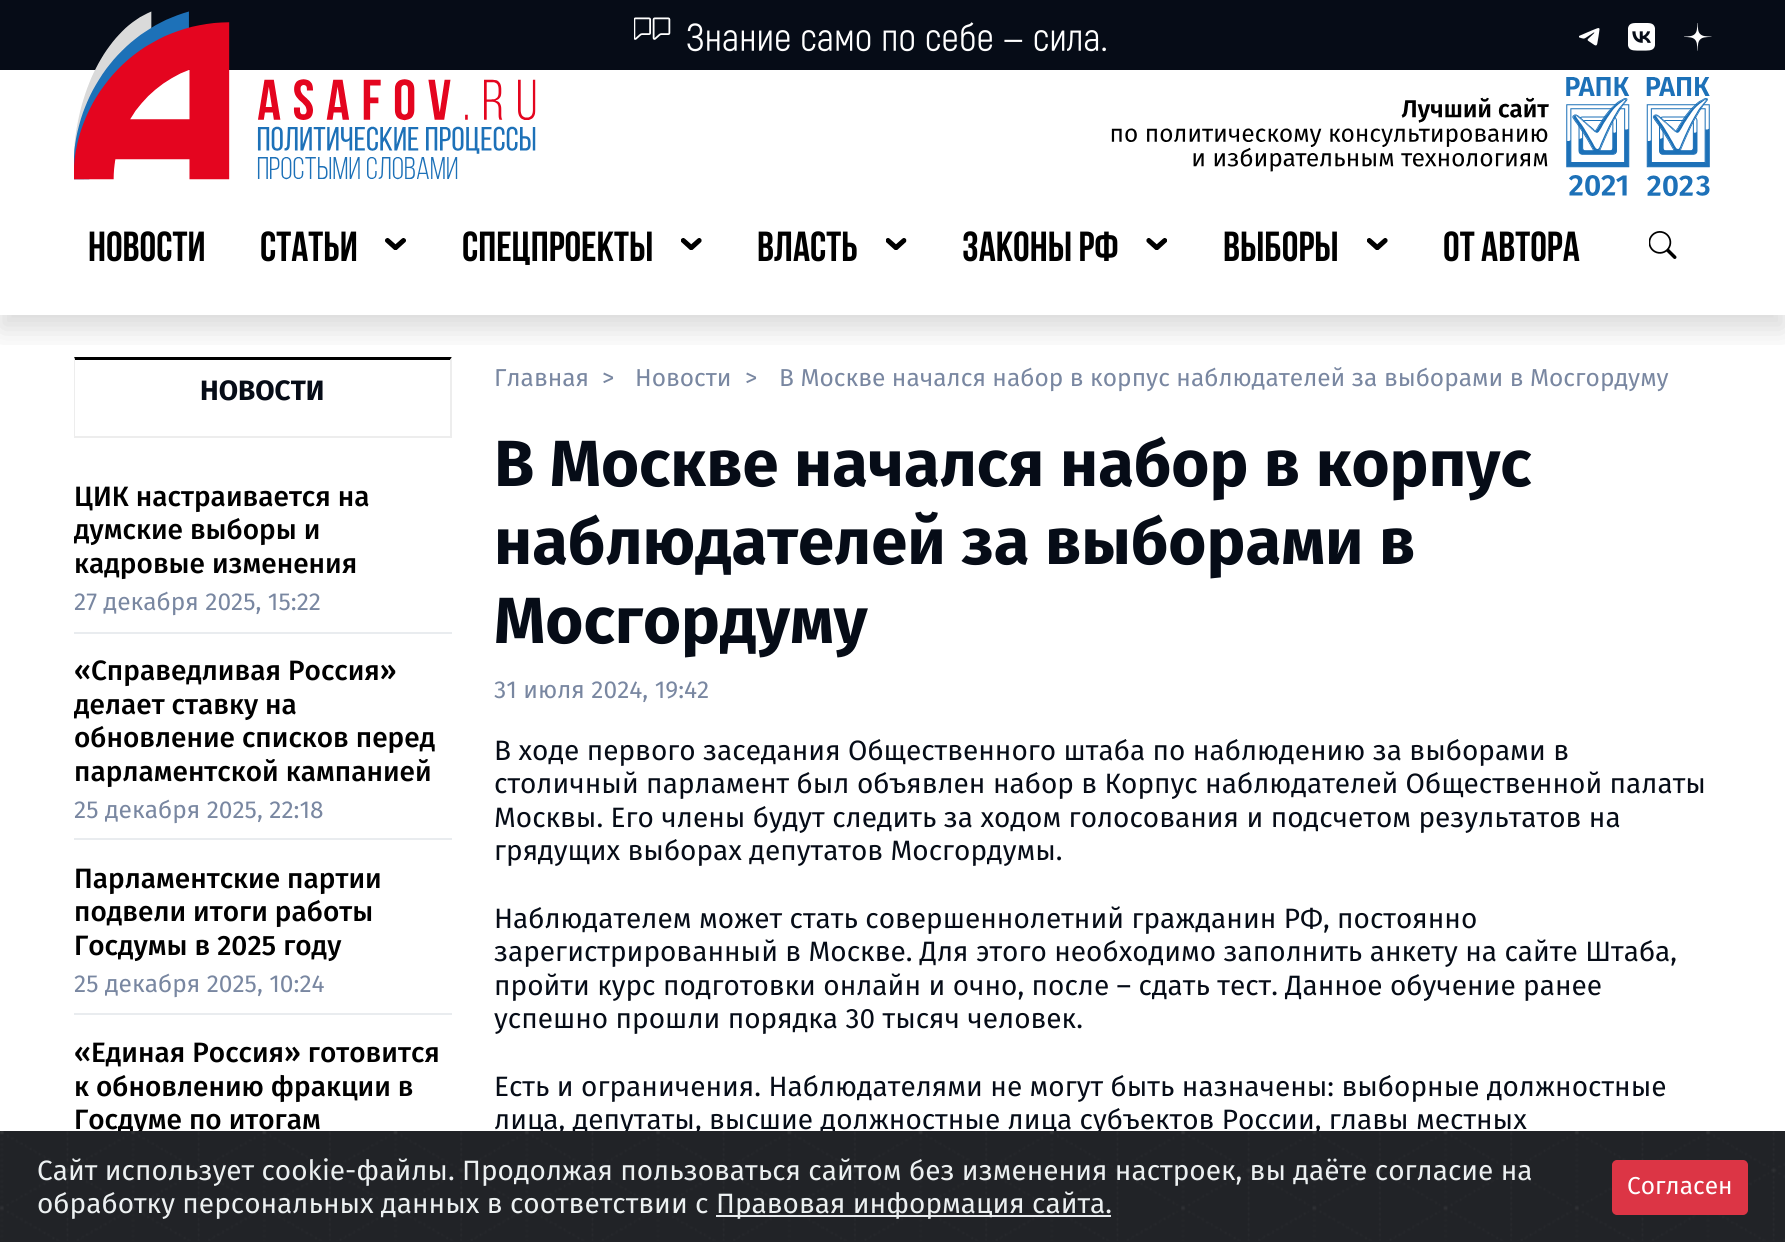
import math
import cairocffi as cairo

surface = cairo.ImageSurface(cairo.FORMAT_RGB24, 1785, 1242)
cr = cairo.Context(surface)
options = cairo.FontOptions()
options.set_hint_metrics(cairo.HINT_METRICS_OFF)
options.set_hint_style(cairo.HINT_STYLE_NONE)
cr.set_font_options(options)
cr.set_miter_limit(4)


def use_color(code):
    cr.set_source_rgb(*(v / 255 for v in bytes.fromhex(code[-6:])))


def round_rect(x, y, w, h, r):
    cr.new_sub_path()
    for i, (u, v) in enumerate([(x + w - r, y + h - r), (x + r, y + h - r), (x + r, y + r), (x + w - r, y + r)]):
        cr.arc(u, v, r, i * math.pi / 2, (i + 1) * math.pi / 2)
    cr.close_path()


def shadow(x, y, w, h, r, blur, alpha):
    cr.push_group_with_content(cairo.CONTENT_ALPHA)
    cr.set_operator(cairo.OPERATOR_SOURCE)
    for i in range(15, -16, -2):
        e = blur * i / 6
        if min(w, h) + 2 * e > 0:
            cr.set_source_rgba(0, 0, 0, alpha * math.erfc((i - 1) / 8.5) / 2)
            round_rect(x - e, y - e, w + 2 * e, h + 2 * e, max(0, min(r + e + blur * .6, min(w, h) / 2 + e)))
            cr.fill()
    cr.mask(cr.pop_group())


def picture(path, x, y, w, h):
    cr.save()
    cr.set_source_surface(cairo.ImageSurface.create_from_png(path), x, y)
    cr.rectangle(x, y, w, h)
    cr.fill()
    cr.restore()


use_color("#ffffff")
cr.paint()
use_color("#000000")
cr.new_path()
cr.move_to(74, 357)
cr.line_to(452, 357)
cr.line_to(450, 360)
cr.line_to(75, 360)
cr.close_path()
cr.fill()
use_color("#ededed")
cr.new_path()
cr.move_to(452, 357)
cr.line_to(452, 438)
cr.line_to(450, 436)
cr.line_to(450, 360)
cr.close_path()
cr.fill()
cr.rectangle(74, 436, 378, 2)
cr.fill()
cr.new_path()
cr.move_to(74, 438)
cr.line_to(74, 357)
cr.line_to(75, 360)
cr.line_to(75, 436)
cr.close_path()
cr.fill()
cr.save()
cr.rectangle(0, 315, 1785, 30)
cr.clip()
use_color("#000000")
shadow(0, 14, 1785, 315, 0, 14, 0.15)
cr.restore()
use_color("#060c17")
cr.rectangle(0, 0, 1785, 70)
cr.fill()
picture("img1.png", 634, 17, 472, 35)
picture("img2.png", 1579, 28, 21, 18)
picture("img3.png", 1628, 23, 27, 28)
picture("img4.png", 1684, 23, 28, 28)
picture("img5.png", 74, 11, 462, 169)
picture("img6.png", 1111, 77, 599, 120)
cr.select_font_face("Bebas Neue", cairo.FONT_SLANT_NORMAL, cairo.FONT_WEIGHT_BOLD)
cr.set_font_size(42)
use_color("#000000")
cr.move_to(88, 261)
cr.show_text("НОВОСТИ")
cr.move_to(260, 261)
cr.show_text("СТАТЬИ")
picture("img7.png", 385, 238, 21, 12)
cr.move_to(462, 261)
cr.show_text("СПЕЦПРОЕКТЫ")
picture("img8.png", 681, 238, 21, 12)
cr.move_to(757, 261)
cr.show_text("ВЛАСТЬ")
picture("img9.png", 886, 238, 21, 12)
cr.move_to(962, 261)
cr.show_text("ЗАКОНЫ РФ")
picture("img10.png", 1146, 238, 21, 12)
cr.move_to(1223, 261)
cr.show_text("ВЫБОРЫ")
picture("img8.png", 1367, 238, 21, 12)
cr.move_to(1443, 261)
cr.show_text("ОТ АВТОРА")
picture("img11.png", 1649, 231, 28, 28)
cr.select_font_face("Fira Sans", cairo.FONT_SLANT_NORMAL, cairo.FONT_WEIGHT_BOLD)
cr.set_font_size(28)
use_color("#060c17")
cr.move_to(200, 400)
cr.show_text("НОВОСТИ")
use_color("#e9ecef")
cr.rectangle(74, 632, 378, 2)
cr.fill()
cr.select_font_face("Fira Sans Medium")
use_color("#000000")
cr.move_to(74, 506)
cr.show_text("ЦИК настраивается на")
cr.move_to(74, 539)
cr.show_text("думские выборы и")
cr.move_to(74, 573)
cr.show_text("кадровые изменения")
cr.select_font_face("Fira Sans")
cr.set_font_size(24.5)
use_color("#7987a1")
cr.move_to(74, 610)
cr.show_text("27 декабря 2025, 15:22")
use_color("#e9ecef")
cr.rectangle(74, 838, 378, 2)
cr.fill()
cr.select_font_face("Fira Sans Medium")
cr.set_font_size(28)
use_color("#000000")
cr.move_to(74, 680)
cr.show_text("«Справедливая Россия»")
cr.move_to(74, 714)
cr.show_text("делает ставку на")
cr.move_to(74, 747)
cr.show_text("обновление списков перед")
cr.move_to(74, 781)
cr.show_text("парламентской кампанией")
cr.select_font_face("Fira Sans")
cr.set_font_size(24.5)
use_color("#7987a1")
cr.move_to(74, 818)
cr.show_text("25 декабря 2025, 22:18")
use_color("#e9ecef")
cr.rectangle(74, 1013, 378, 2)
cr.fill()
cr.select_font_face("Fira Sans Medium")
cr.set_font_size(28)
use_color("#000000")
cr.move_to(74, 888)
cr.show_text("Парламентские партии")
cr.move_to(74, 921)
cr.show_text("подвели итоги работы")
cr.move_to(74, 955)
cr.show_text("Госдумы в 2025 году")
cr.select_font_face("Fira Sans")
cr.set_font_size(24.5)
use_color("#7987a1")
cr.move_to(74, 992)
cr.show_text("25 декабря 2025, 10:24")
cr.select_font_face("Fira Sans Medium")
cr.set_font_size(28)
use_color("#000000")
cr.move_to(74, 1062)
cr.show_text("«Единая Россия» готовится")
cr.move_to(74, 1096)
cr.show_text("к обновлению фракции в")
cr.move_to(74, 1129)
cr.show_text("Госдуме по итогам")
cr.select_font_face("Fira Sans")
cr.set_font_size(24.5)
use_color("#7987a1")
cr.move_to(494, 386)
cr.show_text("Главная")
cr.move_to(602, 386)
cr.show_text(">")
cr.move_to(635, 386)
cr.show_text("Новости")
cr.move_to(745, 386)
cr.show_text(">")
cr.move_to(779, 386)
cr.show_text("В Москве начался набор в корпус наблюдателей за выборами в Мосгордуму")
cr.select_font_face("Fira Sans", cairo.FONT_SLANT_NORMAL, cairo.FONT_WEIGHT_BOLD)
cr.set_font_size(65.25)
use_color("#060c17")
cr.move_to(494, 486)
cr.show_text("В Москве начался набор в корпус")
cr.move_to(494, 564)
cr.show_text("наблюдателей за выборами в")
cr.move_to(494, 643)
cr.show_text("Мосгордуму")
cr.select_font_face("Fira Sans")
cr.set_font_size(24.5)
use_color("#7987a1")
cr.move_to(494, 698)
cr.show_text("31 июля 2024, 19:42")
cr.set_font_size(28)
use_color("#060c17")
cr.move_to(494, 760)
cr.show_text("В ходе первого заседания Общественного штаба по наблюдению за выборами в")
cr.move_to(494, 793)
cr.show_text("столичный парламент был объявлен набор в Корпус наблюдателей Общественной палаты")
cr.move_to(494, 827)
cr.show_text("Москвы. Его члены будут следить за ходом голосования и подсчетом результатов на")
cr.move_to(494, 860)
cr.show_text("грядущих выборах депутатов Мосгордумы.")
cr.move_to(494, 928)
cr.show_text("Наблюдателем может стать совершеннолетний гражданин РФ, постоянно")
cr.move_to(494, 961)
cr.show_text("зарегистрированный в Москве. Для этого необходимо заполнить анкету на сайте Штаба,")
cr.move_to(494, 995)
cr.show_text("пройти курс подготовки онлайн и очно, после – сдать тест. Данное обучение ранее")
cr.move_to(494, 1028)
cr.show_text("успешно прошли порядка 30 тысяч человек.")
cr.move_to(494, 1096)
cr.show_text("Есть и ограничения. Наблюдателями не могут быть назначены: выборные должностные")
cr.move_to(494, 1129)
cr.show_text("лица, депутаты, высшие должностные лица субъектов России, главы местных")
use_color("#212327")
cr.rectangle(0, 1241, 1785, 1)
cr.fill()
picture("img12.png", 0, 1131, 1785, 110)
use_color("#ecf0f1")
cr.move_to(37, 1180)
cr.show_text("Сайт использует cookie-файлы. Продолжая пользоваться сайтом без изменения настроек, вы даёте согласие на")
cr.move_to(37, 1213)
cr.show_text("обработку персональных данных в соответствии с")
use_color("#e9ecef")
cr.rectangle(716, 1215, 395, 2)
cr.fill()
use_color("#ecf0f1")
cr.move_to(716, 1213)
cr.show_text("Правовая информация сайта.")
use_color("#dc3545")
round_rect(1613, 1161, 134, 53, 4)
cr.fill_preserve()
cr.stroke()
cr.set_font_size(24.5)
use_color("#ffffff")
cr.move_to(1627, 1194)
cr.show_text("Согласен")
surface.write_to_png("result.png")
